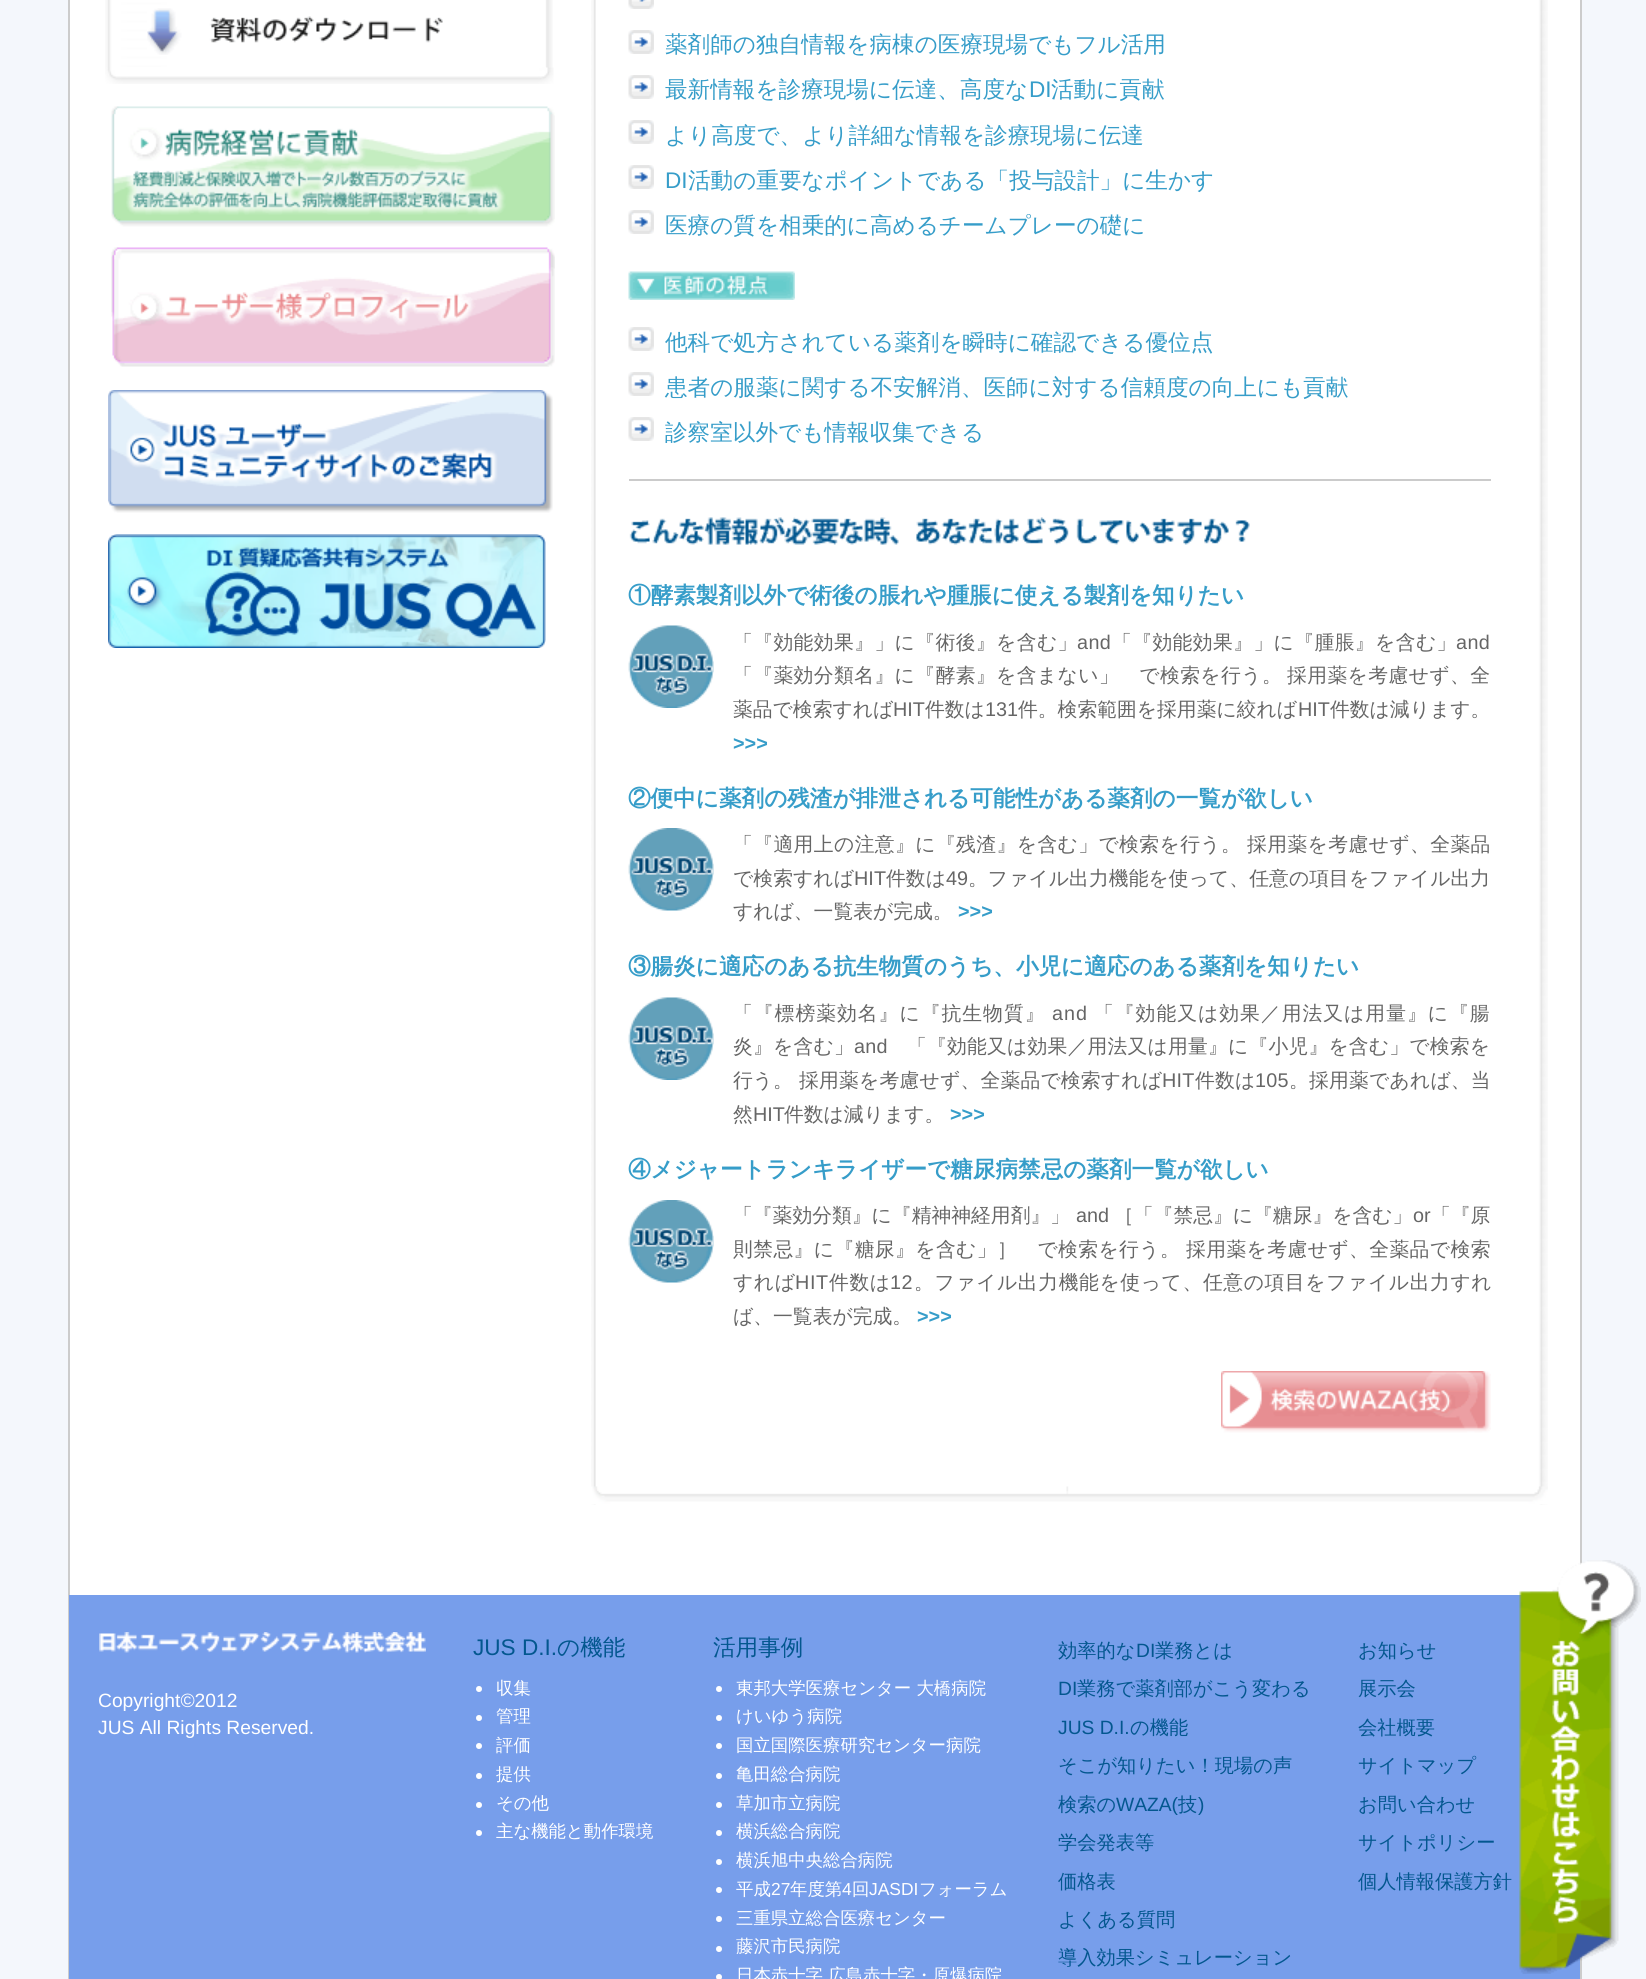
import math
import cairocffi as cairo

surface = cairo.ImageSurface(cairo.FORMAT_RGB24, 1646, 1979)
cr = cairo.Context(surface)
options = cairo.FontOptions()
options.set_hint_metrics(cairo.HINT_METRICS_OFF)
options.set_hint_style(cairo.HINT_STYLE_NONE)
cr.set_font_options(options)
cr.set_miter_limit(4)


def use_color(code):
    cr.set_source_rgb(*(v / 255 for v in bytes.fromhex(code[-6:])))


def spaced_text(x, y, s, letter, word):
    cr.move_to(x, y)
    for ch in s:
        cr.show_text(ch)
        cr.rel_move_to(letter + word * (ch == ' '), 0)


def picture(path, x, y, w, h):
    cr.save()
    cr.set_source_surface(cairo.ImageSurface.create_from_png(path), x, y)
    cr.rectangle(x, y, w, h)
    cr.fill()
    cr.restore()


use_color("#f4f7fc")
cr.paint()
use_color("#ffffff")
cr.rectangle(70, 0, 1510, 1595)
cr.fill()
use_color("#cccccc")
cr.rectangle(1580, 0, 2, 1979)
cr.fill()
cr.rectangle(68, 0, 2, 1979)
cr.fill()
picture("img1.png", 105, 0, 448, 68)
picture("img2.png", 105, 67, 449, 17)
picture("img3.png", 147, 8, 296, 47)
picture("img4.png", 111, 106, 444, 121)
picture("img5.png", 111, 247, 444, 120)
picture("img6.png", 108, 390, 445, 123)
picture("img7.png", 108, 534, 438, 114)
picture("img8.png", 591, 0, 957, 1505)
picture("img9.png", 628, 0, 26, 9)
picture("img10.png", 628, 30, 26, 24)
cr.select_font_face("WenQuanYi Zen Hei Medium")
cr.set_font_size(22.6)
use_color("#369dc9")
cr.move_to(665, 52)
cr.show_text("薬剤師の独自情報を病棟の医療現場でもフル活用")
picture("img10.png", 628, 75, 26, 24)
cr.move_to(665, 97)
cr.show_text("最新情報を診療現場に伝達、高度な")
cr.select_font_face("Liberation Sans")
cr.move_to(1029, 97)
cr.show_text("DI")
cr.select_font_face("WenQuanYi Zen Hei Medium")
cr.move_to(1051, 97)
cr.show_text("活動に貢献")
picture("img10.png", 628, 120, 26, 24)
cr.move_to(665, 143)
cr.show_text("より高度で、より詳細な情報を診療現場に伝達")
picture("img10.png", 628, 165, 26, 24)
cr.select_font_face("Liberation Sans")
cr.move_to(665, 188)
cr.show_text("DI")
cr.select_font_face("WenQuanYi Zen Hei Medium")
cr.move_to(688, 188)
cr.show_text("活動の重要なポイントである「投与設計」に生かす")
picture("img10.png", 628, 210, 26, 24)
cr.move_to(665, 233)
cr.show_text("医療の質を相乗的に高めるチームプレーの礎に")
picture("img11.png", 628, 271, 167, 29)
use_color("#cbcbcb")
cr.rectangle(629, 479, 862, 2)
cr.fill()
picture("img10.png", 628, 327, 26, 24)
use_color("#369dc9")
cr.move_to(665, 350)
cr.show_text("他科で処方されている薬剤を瞬時に確認できる優位点")
picture("img10.png", 628, 372, 26, 24)
cr.move_to(665, 395)
cr.show_text("患者の服薬に関する不安解消、医師に対する信頼度の向上にも貢献")
picture("img10.png", 628, 417, 26, 24)
cr.move_to(665, 440)
cr.show_text("診察室以外でも情報収集できる")
picture("img12.png", 629, 517, 621, 28)
cr.select_font_face("WenQuanYi Zen Hei", cairo.FONT_SLANT_NORMAL, cairo.FONT_WEIGHT_BOLD)
cr.move_to(628, 603)
cr.show_text("①酵素製剤以外で術後の脹れや腫脹に使える製剤を知りたい")
picture("img13.png", 628, 625, 86, 83)
cr.select_font_face("WenQuanYi Zen Hei Medium")
cr.set_font_size(19.8)
use_color("#666666")
spaced_text(733, 649, "「『効能効果』」に『術後』を含む」", 0.4, 0)
cr.select_font_face("Liberation Sans")
spaced_text(1077, 649, "and", 0.4, 0)
cr.select_font_face("WenQuanYi Zen Hei Medium")
spaced_text(1112, 649, "「『効能効果』」に『腫脹』を含む」", 0.4, 0)
cr.select_font_face("Liberation Sans")
spaced_text(1456, 649, "and", 0.4, 0)
cr.select_font_face("WenQuanYi Zen Hei Medium")
spaced_text(733, 682, "「『薬効分類名』に『酵素』を含まない」　で検索を行う。", 0.4, 0)
spaced_text(1287, 682, "採用薬を考慮せず、全", 0.4, 0)
cr.move_to(733, 716)
cr.show_text("薬品で検索すれば")
cr.select_font_face("Liberation Sans")
cr.move_to(893, 716)
cr.show_text("HIT")
cr.select_font_face("WenQuanYi Zen Hei Medium")
cr.move_to(925, 716)
cr.show_text("件数は")
cr.select_font_face("Liberation Sans")
cr.move_to(985, 716)
cr.show_text("131")
cr.select_font_face("WenQuanYi Zen Hei Medium")
cr.move_to(1018, 716)
cr.show_text("件。検索範囲を採用薬に絞れば")
cr.select_font_face("Liberation Sans")
cr.move_to(1298, 716)
cr.show_text("HIT")
cr.select_font_face("WenQuanYi Zen Hei Medium")
cr.move_to(1330, 716)
cr.show_text("件数は減ります。")
cr.select_font_face("Liberation Sans", cairo.FONT_SLANT_NORMAL, cairo.FONT_WEIGHT_BOLD)
use_color("#369dc9")
cr.move_to(733, 750)
cr.show_text(">>>")
cr.select_font_face("WenQuanYi Zen Hei", cairo.FONT_SLANT_NORMAL, cairo.FONT_WEIGHT_BOLD)
cr.set_font_size(22.6)
cr.move_to(628, 806)
cr.show_text("②便中に薬剤の残渣が排泄される可能性がある薬剤の一覧が欲しい")
picture("img14.png", 628, 828, 86, 83)
cr.select_font_face("WenQuanYi Zen Hei Medium")
cr.set_font_size(19.8)
use_color("#666666")
spaced_text(733, 851, "「『適用上の注意』に『残渣』を含む」で検索を行う。", 0.4, 0)
spaced_text(1247, 851, "採用薬を考慮せず、全薬品", 0.4, 0)
spaced_text(733, 885, "で検索すれば", 0.05, 0)
cr.select_font_face("Liberation Sans")
spaced_text(854, 885, "HIT", 0.05, 0)
cr.select_font_face("WenQuanYi Zen Hei Medium")
spaced_text(886, 885, "件数は", 0.05, 0)
cr.select_font_face("Liberation Sans")
spaced_text(946, 885, "49", 0.05, 0)
cr.select_font_face("WenQuanYi Zen Hei Medium")
spaced_text(968, 885, "。ファイル出力機能を使って、任意の項目をファイル出力", 0.05, 0)
cr.move_to(733, 918)
cr.show_text("すれば、一覧表が完成。")
cr.select_font_face("Liberation Sans", cairo.FONT_SLANT_NORMAL, cairo.FONT_WEIGHT_BOLD)
use_color("#369dc9")
cr.move_to(958, 918)
cr.show_text(">>>")
cr.select_font_face("WenQuanYi Zen Hei", cairo.FONT_SLANT_NORMAL, cairo.FONT_WEIGHT_BOLD)
cr.set_font_size(22.6)
cr.move_to(628, 974)
cr.show_text("③腸炎に適応のある抗生物質のうち、小児に適応のある薬剤を知りたい")
picture("img13.png", 628, 997, 86, 83)
cr.select_font_face("WenQuanYi Zen Hei Medium")
cr.set_font_size(19.8)
use_color("#666666")
spaced_text(733, 1020, "「『標榜薬効名』に『抗生物質』", 1, 0)
cr.select_font_face("Liberation Sans")
spaced_text(1052, 1020, "and", 1, 0)
cr.select_font_face("WenQuanYi Zen Hei Medium")
spaced_text(1094, 1020, "「『効能又は効果／用法又は用量』に『腸", 1, 0)
spaced_text(733, 1053, "炎』を含む」", 0.2, 0)
cr.select_font_face("Liberation Sans")
spaced_text(854, 1053, "and", 0.2, 0)
cr.select_font_face("WenQuanYi Zen Hei Medium")
spaced_text(907, 1053, "「『効能又は効果／用法又は用量』に『小児』を含む」で検索を", 0.2, 0)
cr.move_to(733, 1087)
cr.show_text("行う。")
spaced_text(799, 1087, "採用薬を考慮せず、全薬品で検索すれば", 0.2, 0)
cr.select_font_face("Liberation Sans")
spaced_text(1162, 1087, "HIT", 0.2, 0)
cr.select_font_face("WenQuanYi Zen Hei Medium")
spaced_text(1195, 1087, "件数は", 0.2, 0)
cr.select_font_face("Liberation Sans")
spaced_text(1255, 1087, "105", 0.2, 0)
cr.select_font_face("WenQuanYi Zen Hei Medium")
spaced_text(1289, 1087, "。採用薬であれば、当", 0.2, 0)
cr.move_to(733, 1121)
cr.show_text("然")
cr.select_font_face("Liberation Sans")
cr.move_to(753, 1121)
cr.show_text("HIT")
cr.select_font_face("WenQuanYi Zen Hei Medium")
cr.move_to(784, 1121)
cr.show_text("件数は減ります。")
cr.select_font_face("Liberation Sans", cairo.FONT_SLANT_NORMAL, cairo.FONT_WEIGHT_BOLD)
use_color("#369dc9")
cr.move_to(950, 1121)
cr.show_text(">>>")
cr.select_font_face("WenQuanYi Zen Hei", cairo.FONT_SLANT_NORMAL, cairo.FONT_WEIGHT_BOLD)
cr.set_font_size(22.6)
cr.move_to(628, 1177)
cr.show_text("④メジャートランキライザーで糖尿病禁忌の薬剤一覧が欲しい")
picture("img14.png", 628, 1200, 86, 83)
cr.select_font_face("WenQuanYi Zen Hei Medium")
cr.set_font_size(19.8)
use_color("#666666")
cr.move_to(733, 1222)
cr.show_text("「『薬効分類』に『精神神経用剤』」")
cr.select_font_face("Liberation Sans")
cr.move_to(1076, 1222)
cr.show_text("and")
cr.select_font_face("WenQuanYi Zen Hei Medium")
cr.move_to(1114, 1222)
cr.show_text("［「『禁忌』に『糖尿』を含む」")
cr.select_font_face("Liberation Sans")
cr.move_to(1413, 1222)
cr.show_text("or")
cr.select_font_face("WenQuanYi Zen Hei Medium")
cr.move_to(1431, 1222)
cr.show_text("「『原")
spaced_text(733, 1256, "則禁忌』に『糖尿』を含む」］　で検索を行う。", 0.4, 0)
spaced_text(1186, 1256, "採用薬を考慮せず、全薬品で検索", 0.4, 0)
spaced_text(733, 1289, "すれば", 0.6, 0)
cr.select_font_face("Liberation Sans")
spaced_text(795, 1289, "HIT", 0.6, 0)
cr.select_font_face("WenQuanYi Zen Hei Medium")
spaced_text(829, 1289, "件数は", 0.6, 0)
cr.select_font_face("Liberation Sans")
spaced_text(890, 1289, "12", 0.6, 0)
cr.select_font_face("WenQuanYi Zen Hei Medium")
spaced_text(914, 1289, "。ファイル出力機能を使って、任意の項目をファイル出力すれ", 0.6, 0)
cr.move_to(733, 1323)
cr.show_text("ば、一覧表が完成。")
cr.select_font_face("Liberation Sans", cairo.FONT_SLANT_NORMAL, cairo.FONT_WEIGHT_BOLD)
use_color("#369dc9")
cr.move_to(917, 1323)
cr.show_text(">>>")
picture("img15.png", 1221, 1371, 270, 62)
picture("img16.png", 591, 1486, 957, 19)
use_color("#779eeb")
cr.rectangle(69, 1595, 1511, 384)
cr.fill()
picture("img17.png", 99, 1632, 327, 21)
cr.select_font_face("Liberation Sans")
cr.set_font_size(19.25)
use_color("#ffffff")
cr.move_to(98, 1707)
cr.show_text("Copyright©2012")
cr.move_to(98, 1734)
cr.show_text("JUS All Rights Reserved.")
cr.set_font_size(22.6)
use_color("#03578f")
cr.move_to(473, 1655)
cr.show_text("JUS D.I.")
cr.select_font_face("WenQuanYi Zen Hei Medium")
cr.move_to(557, 1655)
cr.show_text("の機能")
use_color("#ffffff")
cr.new_path()
cr.arc(479, 1689, 3, 0, 2 * math.pi)
cr.fill()
cr.set_font_size(17.4)
cr.move_to(496, 1694)
cr.show_text("収集")
cr.new_path()
cr.arc(479, 1718, 3, 0, 2 * math.pi)
cr.fill()
cr.move_to(496, 1722)
cr.show_text("管理")
cr.new_path()
cr.arc(479, 1746, 3, 0, 2 * math.pi)
cr.fill()
cr.move_to(496, 1751)
cr.show_text("評価")
cr.new_path()
cr.arc(479, 1776, 3, 0, 2 * math.pi)
cr.fill()
cr.move_to(496, 1780)
cr.show_text("提供")
cr.new_path()
cr.arc(479, 1805, 3, 0, 2 * math.pi)
cr.fill()
cr.move_to(496, 1809)
cr.show_text("その他")
cr.new_path()
cr.arc(479, 1833, 3, 0, 2 * math.pi)
cr.fill()
cr.move_to(496, 1837)
cr.show_text("主な機能と動作環境")
cr.set_font_size(22.6)
use_color("#03578f")
cr.move_to(713, 1655)
cr.show_text("活用事例")
use_color("#ffffff")
cr.new_path()
cr.arc(719, 1689, 3, 0, 2 * math.pi)
cr.fill()
cr.set_font_size(17.4)
cr.move_to(736, 1694)
cr.show_text("東邦大学医療センター 大橋病院")
cr.new_path()
cr.arc(719, 1718, 3, 0, 2 * math.pi)
cr.fill()
cr.move_to(736, 1722)
cr.show_text("けいゆう病院")
cr.new_path()
cr.arc(719, 1746, 3, 0, 2 * math.pi)
cr.fill()
cr.move_to(736, 1751)
cr.show_text("国立国際医療研究センター病院")
cr.new_path()
cr.arc(719, 1776, 3, 0, 2 * math.pi)
cr.fill()
cr.move_to(736, 1780)
cr.show_text("亀田総合病院")
cr.new_path()
cr.arc(719, 1805, 3, 0, 2 * math.pi)
cr.fill()
cr.move_to(736, 1809)
cr.show_text("草加市立病院")
cr.new_path()
cr.arc(719, 1833, 3, 0, 2 * math.pi)
cr.fill()
cr.move_to(736, 1837)
cr.show_text("横浜総合病院")
cr.new_path()
cr.arc(719, 1862, 3, 0, 2 * math.pi)
cr.fill()
cr.move_to(736, 1866)
cr.show_text("横浜旭中央総合病院")
cr.new_path()
cr.arc(719, 1890, 3, 0, 2 * math.pi)
cr.fill()
cr.move_to(736, 1895)
cr.show_text("平成")
cr.select_font_face("Liberation Sans")
cr.move_to(771, 1895)
cr.show_text("27")
cr.select_font_face("WenQuanYi Zen Hei Medium")
cr.move_to(790, 1895)
cr.show_text("年度第")
cr.select_font_face("Liberation Sans")
cr.move_to(842, 1895)
cr.show_text("4")
cr.select_font_face("WenQuanYi Zen Hei Medium")
cr.move_to(852, 1895)
cr.show_text("回")
cr.select_font_face("Liberation Sans")
cr.move_to(869, 1895)
cr.show_text("JASDI")
cr.select_font_face("WenQuanYi Zen Hei Medium")
cr.move_to(919, 1895)
cr.show_text("フォーラム")
cr.new_path()
cr.arc(719, 1919, 3, 0, 2 * math.pi)
cr.fill()
cr.move_to(736, 1924)
cr.show_text("三重県立総合医療センター")
cr.new_path()
cr.arc(719, 1949, 3, 0, 2 * math.pi)
cr.fill()
cr.move_to(736, 1952)
cr.show_text("藤沢市民病院")
cr.new_path()
cr.arc(719, 1977, 3, 0, 2 * math.pi)
cr.fill()
cr.move_to(736, 1981)
cr.show_text("日本赤十字 広島赤十字・原爆病院")
cr.set_font_size(19.25)
use_color("#03578f")
cr.move_to(1058, 1657)
cr.show_text("効率的な")
cr.select_font_face("Liberation Sans")
cr.move_to(1136, 1657)
cr.show_text("DI")
cr.select_font_face("WenQuanYi Zen Hei Medium")
cr.move_to(1155, 1657)
cr.show_text("業務とは")
cr.select_font_face("Liberation Sans")
cr.move_to(1058, 1695)
cr.show_text("DI")
cr.select_font_face("WenQuanYi Zen Hei Medium")
cr.move_to(1077, 1695)
cr.show_text("業務で薬剤部がこう変わる")
cr.select_font_face("Liberation Sans")
cr.move_to(1058, 1734)
cr.show_text("JUS D.I.")
cr.select_font_face("WenQuanYi Zen Hei Medium")
cr.move_to(1130, 1734)
cr.show_text("の機能")
cr.move_to(1058, 1772)
cr.show_text("そこが知りたい！現場の声")
cr.move_to(1058, 1811)
cr.show_text("検索の")
cr.select_font_face("Liberation Sans")
cr.move_to(1116, 1811)
cr.show_text("WAZA(")
cr.select_font_face("WenQuanYi Zen Hei Medium")
cr.move_to(1178, 1811)
cr.show_text("技")
cr.select_font_face("Liberation Sans")
cr.move_to(1198, 1811)
cr.show_text(")")
cr.select_font_face("WenQuanYi Zen Hei Medium")
cr.move_to(1058, 1849)
cr.show_text("学会発表等")
cr.move_to(1058, 1888)
cr.show_text("価格表")
cr.move_to(1058, 1926)
cr.show_text("よくある質問")
cr.move_to(1058, 1964)
cr.show_text("導入効果シミュレーション")
cr.move_to(1358, 1657)
cr.show_text("お知らせ")
cr.move_to(1358, 1695)
cr.show_text("展示会")
cr.move_to(1358, 1734)
cr.show_text("会社概要")
cr.move_to(1358, 1772)
cr.show_text("サイトマップ")
cr.move_to(1358, 1811)
cr.show_text("お問い合わせ")
cr.move_to(1358, 1849)
cr.show_text("サイトポリシー")
cr.move_to(1358, 1888)
cr.show_text("個人情報保護方針")
picture("img18.png", 1519, 1560, 122, 414)
surface.write_to_png("result.png")
